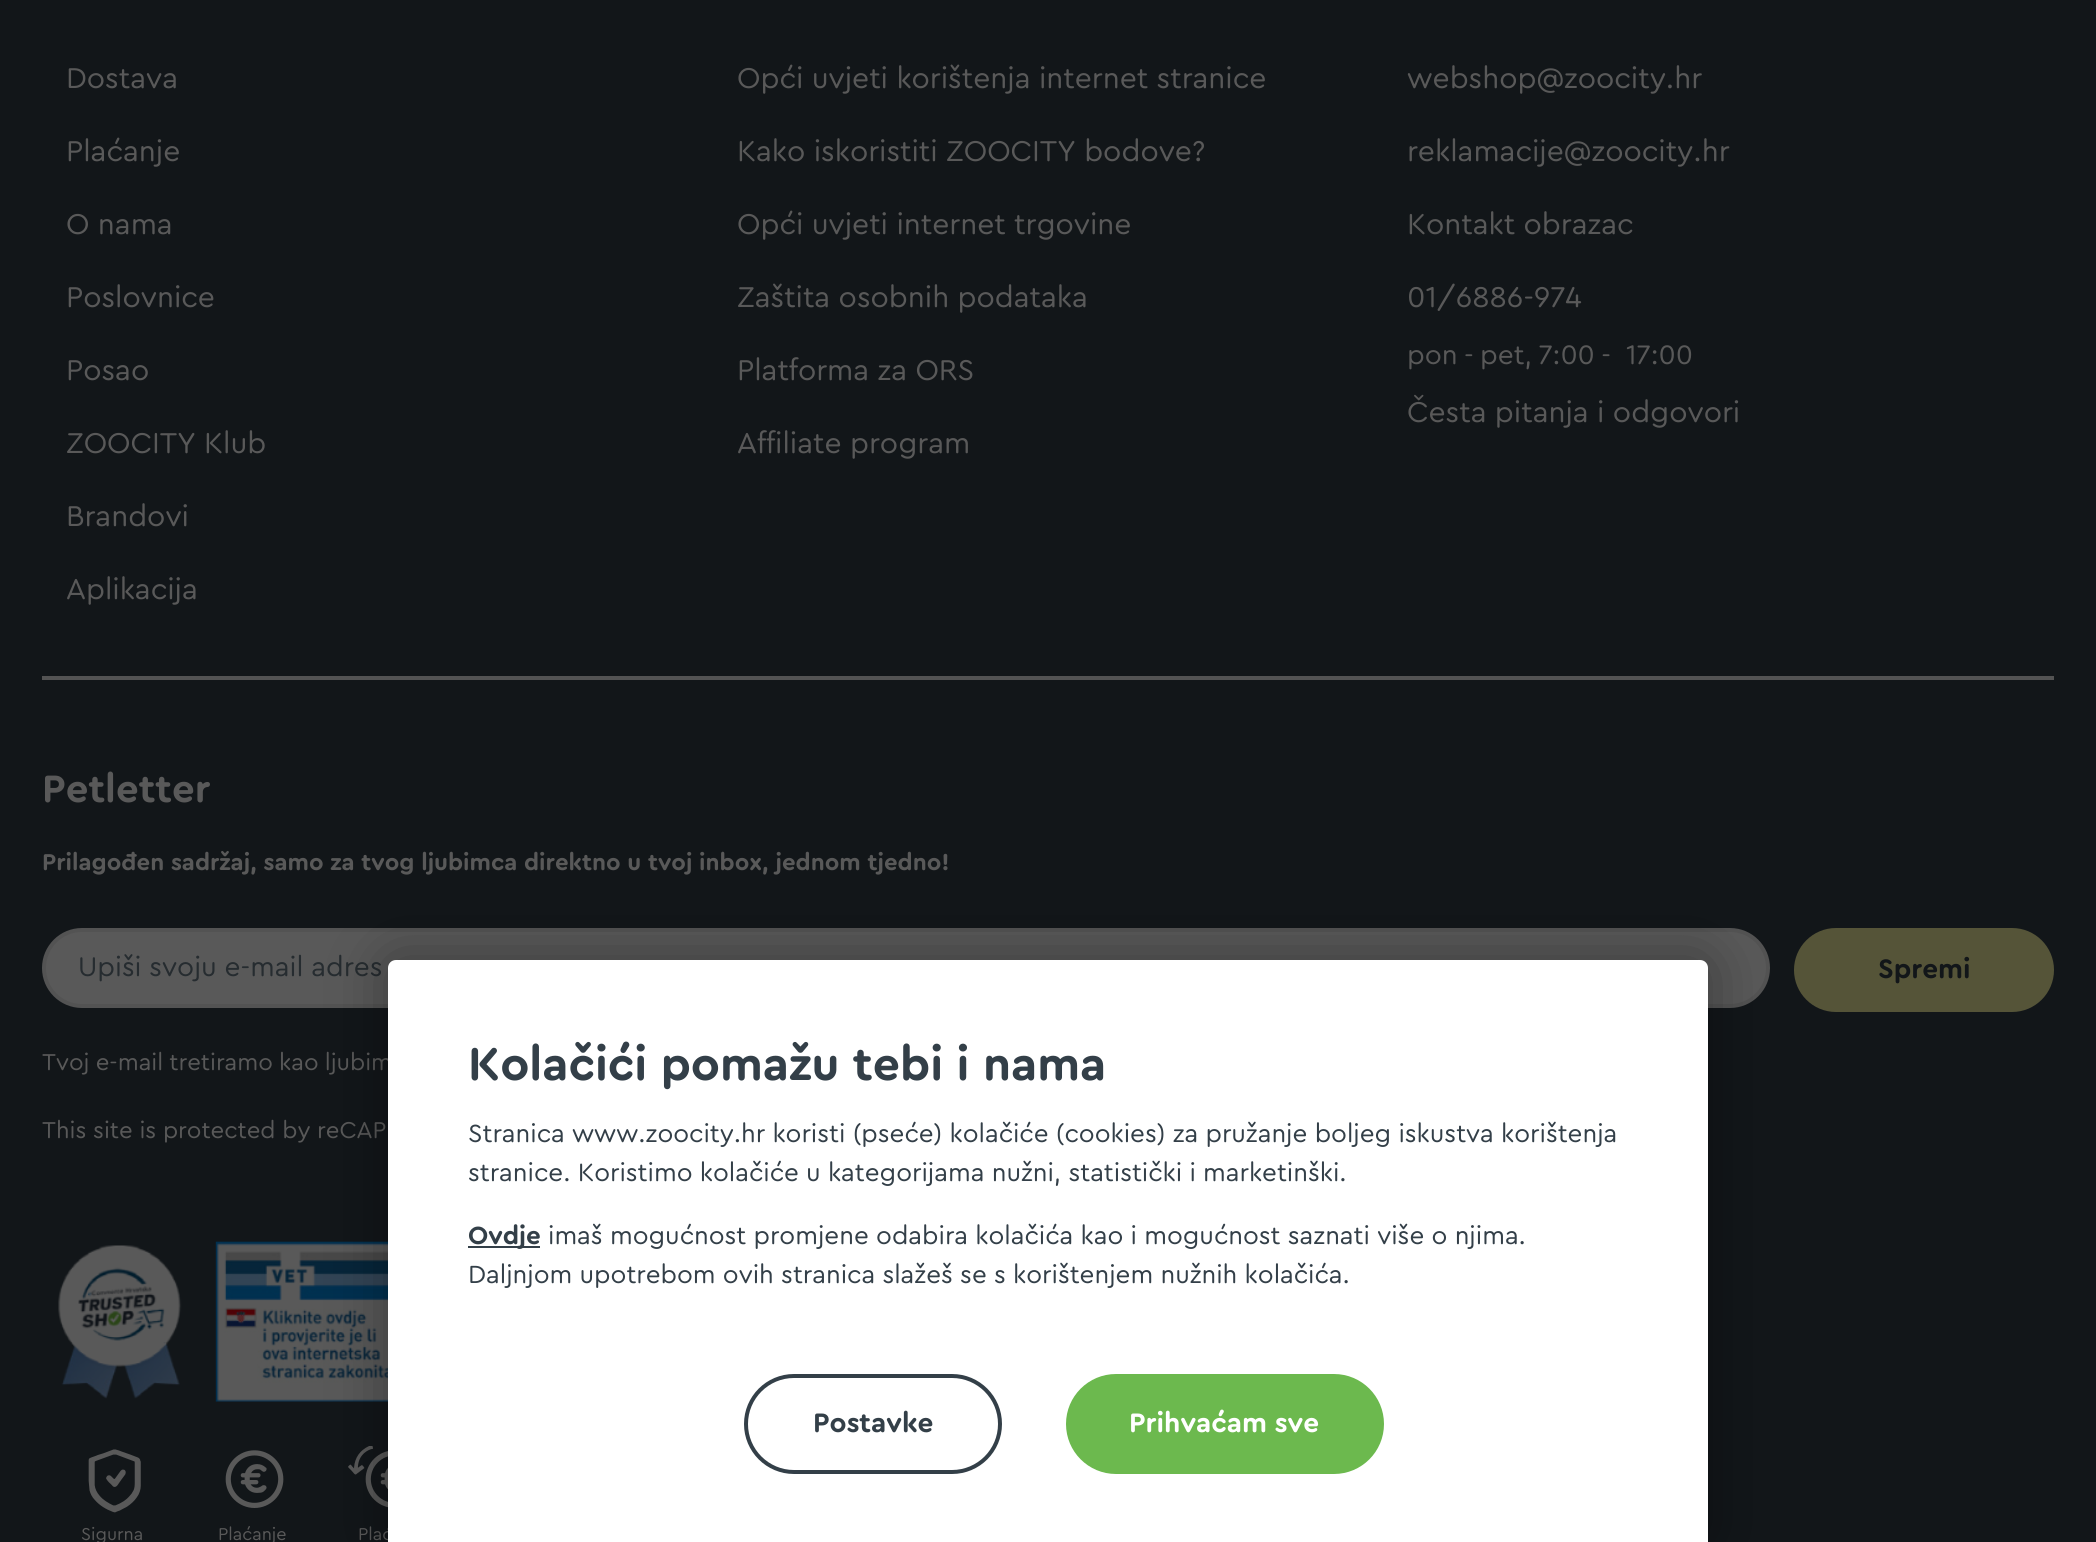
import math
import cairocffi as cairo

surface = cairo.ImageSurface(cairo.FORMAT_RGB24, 2096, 1542)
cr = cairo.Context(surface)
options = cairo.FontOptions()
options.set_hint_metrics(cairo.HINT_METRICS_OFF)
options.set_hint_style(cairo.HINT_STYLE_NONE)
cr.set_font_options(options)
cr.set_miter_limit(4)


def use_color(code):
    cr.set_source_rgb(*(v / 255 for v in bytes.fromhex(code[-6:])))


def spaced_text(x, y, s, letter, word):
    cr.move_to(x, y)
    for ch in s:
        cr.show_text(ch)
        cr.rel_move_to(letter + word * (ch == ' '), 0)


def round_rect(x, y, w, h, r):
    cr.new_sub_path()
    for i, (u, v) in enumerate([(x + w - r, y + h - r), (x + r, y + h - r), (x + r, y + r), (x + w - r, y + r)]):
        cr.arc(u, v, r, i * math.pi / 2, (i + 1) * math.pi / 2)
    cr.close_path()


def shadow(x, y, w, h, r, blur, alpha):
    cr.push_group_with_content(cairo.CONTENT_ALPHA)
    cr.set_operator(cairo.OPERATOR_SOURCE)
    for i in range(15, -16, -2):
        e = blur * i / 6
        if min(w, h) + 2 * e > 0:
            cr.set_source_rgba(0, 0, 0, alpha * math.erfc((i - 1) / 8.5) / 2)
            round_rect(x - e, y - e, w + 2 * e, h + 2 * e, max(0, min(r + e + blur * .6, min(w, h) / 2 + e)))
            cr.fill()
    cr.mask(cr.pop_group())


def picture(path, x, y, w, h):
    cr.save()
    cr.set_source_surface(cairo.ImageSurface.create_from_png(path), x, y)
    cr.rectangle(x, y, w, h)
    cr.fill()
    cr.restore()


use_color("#121619")
cr.paint()
cr.select_font_face("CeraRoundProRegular")
cr.set_font_size(30)
use_color("#595959")
cr.move_to(66, 88)
cr.show_text("Dostava")
cr.move_to(66, 161)
cr.show_text("Plaćanje")
cr.move_to(66, 234)
cr.show_text("O nama")
cr.move_to(66, 307)
cr.show_text("Poslovnice")
cr.move_to(66, 380)
cr.show_text("Posao")
cr.move_to(66, 453)
cr.show_text("ZOOCITY Klub")
cr.move_to(66, 526)
cr.show_text("Brandovi")
cr.move_to(66, 599)
cr.show_text("Aplikacija")
cr.move_to(737, 88)
cr.show_text("Opći uvjeti korištenja internet stranice")
cr.move_to(737, 161)
cr.show_text("Kako iskoristiti ZOOCITY bodove?")
cr.move_to(737, 234)
cr.show_text("Opći uvjeti internet trgovine")
cr.move_to(737, 307)
cr.show_text("Zaštita osobnih podataka")
cr.move_to(737, 380)
cr.show_text("Platforma za ORS")
cr.move_to(737, 453)
cr.show_text("Affiliate program")
cr.move_to(1407, 88)
cr.show_text("webshop@zoocity.hr")
cr.move_to(1407, 161)
cr.show_text("reklamacije@zoocity.hr")
cr.move_to(1407, 234)
cr.show_text("Kontakt obrazac")
cr.move_to(1407, 307)
cr.show_text("01/6886-974")
cr.set_font_size(28)
spaced_text(1407, 364, "pon - pet, 7:00 -", 0, -1.5)
spaced_text(1626, 364, "17:00", 0, -1.5)
cr.set_font_size(30)
cr.move_to(1407, 422)
cr.show_text("Česta pitanja i odgovori")
use_color("#535353")
cr.rectangle(42, 676, 2012, 4)
cr.fill()
cr.select_font_face("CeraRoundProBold", cairo.FONT_SLANT_NORMAL, cairo.FONT_WEIGHT_BOLD)
cr.set_font_size(40)
use_color("#595959")
cr.move_to(42, 802)
cr.show_text("Petletter")
cr.set_font_size(24)
cr.move_to(42, 870)
cr.show_text("Prilagođen sadržaj, samo za tvog ljubimca direktno u tvoj inbox, jednom tjedno!")
round_rect(44, 930, 1724, 76, 38)
cr.fill_preserve()
use_color("#535353")
cr.set_line_width(4)
cr.stroke()
cr.select_font_face("CeraRoundProRegular")
cr.set_font_size(28)
use_color("#262c30")
cr.move_to(78, 976)
cr.show_text("Upiši svoju e-mail adres")
use_color("#555438")
round_rect(1794, 928, 260, 84, 42)
cr.fill()
cr.select_font_face("CeraRoundProBold", cairo.FONT_SLANT_NORMAL, cairo.FONT_WEIGHT_BOLD)
use_color("#121619")
cr.move_to(1878, 978)
cr.show_text("Spremi")
cr.select_font_face("CeraRoundProRegular")
cr.set_font_size(24)
use_color("#595959")
spaced_text(42, 1070, "Tvoj e-mail tretiramo kao ljubim", 0, -0.5)
cr.move_to(42, 1138)
cr.show_text("This site is protected by reCAP")
picture("img1.png", 58, 1241, 330, 161)
picture("img2.png", 88, 1449, 53, 64)
cr.set_font_size(18)
cr.move_to(81, 1540)
cr.show_text("Sigurna")
picture("img3.png", 225, 1450, 59, 58)
cr.move_to(218, 1540)
cr.show_text("Plaćanje")
picture("img4.png", 348, 1446, 40, 62)
cr.move_to(358, 1540)
cr.show_text("Plać")
use_color("#000000")
shadow(388, 960, 1320, 582, 8, 30, 0.35)
use_color("#ffffff")
cr.new_path()
cr.move_to(396, 960)
cr.line_to(1700, 960)
cr.curve_to(1704.5, 960, 1708, 963.5, 1708, 968)
cr.line_to(1708, 1542)
cr.line_to(388, 1542)
cr.line_to(388, 968)
cr.curve_to(388, 963.5, 391.5, 960, 396, 960)
cr.close_path()
cr.fill()
cr.select_font_face("CeraRoundProBold", cairo.FONT_SLANT_NORMAL, cairo.FONT_WEIGHT_BOLD)
cr.set_font_size(48)
use_color("#333f48")
cr.move_to(468, 1080)
cr.show_text("Kolačići pomažu tebi i nama")
cr.select_font_face("CeraRoundProRegular")
cr.set_font_size(26)
cr.move_to(468, 1142)
cr.show_text("Stranica www.zoocity.hr koristi (pseće) kolačiće (cookies) za pružanje boljeg iskustva korištenja")
cr.move_to(468, 1181)
cr.show_text("stranice. Koristimo kolačiće u kategorijama nužni, statistički i marketinški.")
cr.rectangle(468, 1246, 72, 2)
cr.fill()
cr.select_font_face("CeraRoundProBold", cairo.FONT_SLANT_NORMAL, cairo.FONT_WEIGHT_BOLD)
cr.move_to(468, 1244)
cr.show_text("Ovdje")
cr.select_font_face("CeraRoundProRegular")
cr.move_to(548, 1244)
cr.show_text("imaš mogućnost promjene odabira kolačića kao i mogućnost saznati više o njima.")
cr.move_to(468, 1283)
cr.show_text("Daljnjom upotrebom ovih stranica slažeš se s korištenjem nužnih kolačića.")
round_rect(746, 1376, 254, 96, 48)
cr.stroke()
cr.select_font_face("CeraRoundProBold", cairo.FONT_SLANT_NORMAL, cairo.FONT_WEIGHT_BOLD)
cr.set_font_size(28)
cr.move_to(813, 1432)
cr.show_text("Postavke")
use_color("#6cb94e")
round_rect(1066, 1374, 318, 100, 50)
cr.fill()
use_color("#ffffff")
cr.move_to(1129, 1432)
cr.show_text("Prihvaćam sve")
surface.write_to_png("result.png")
